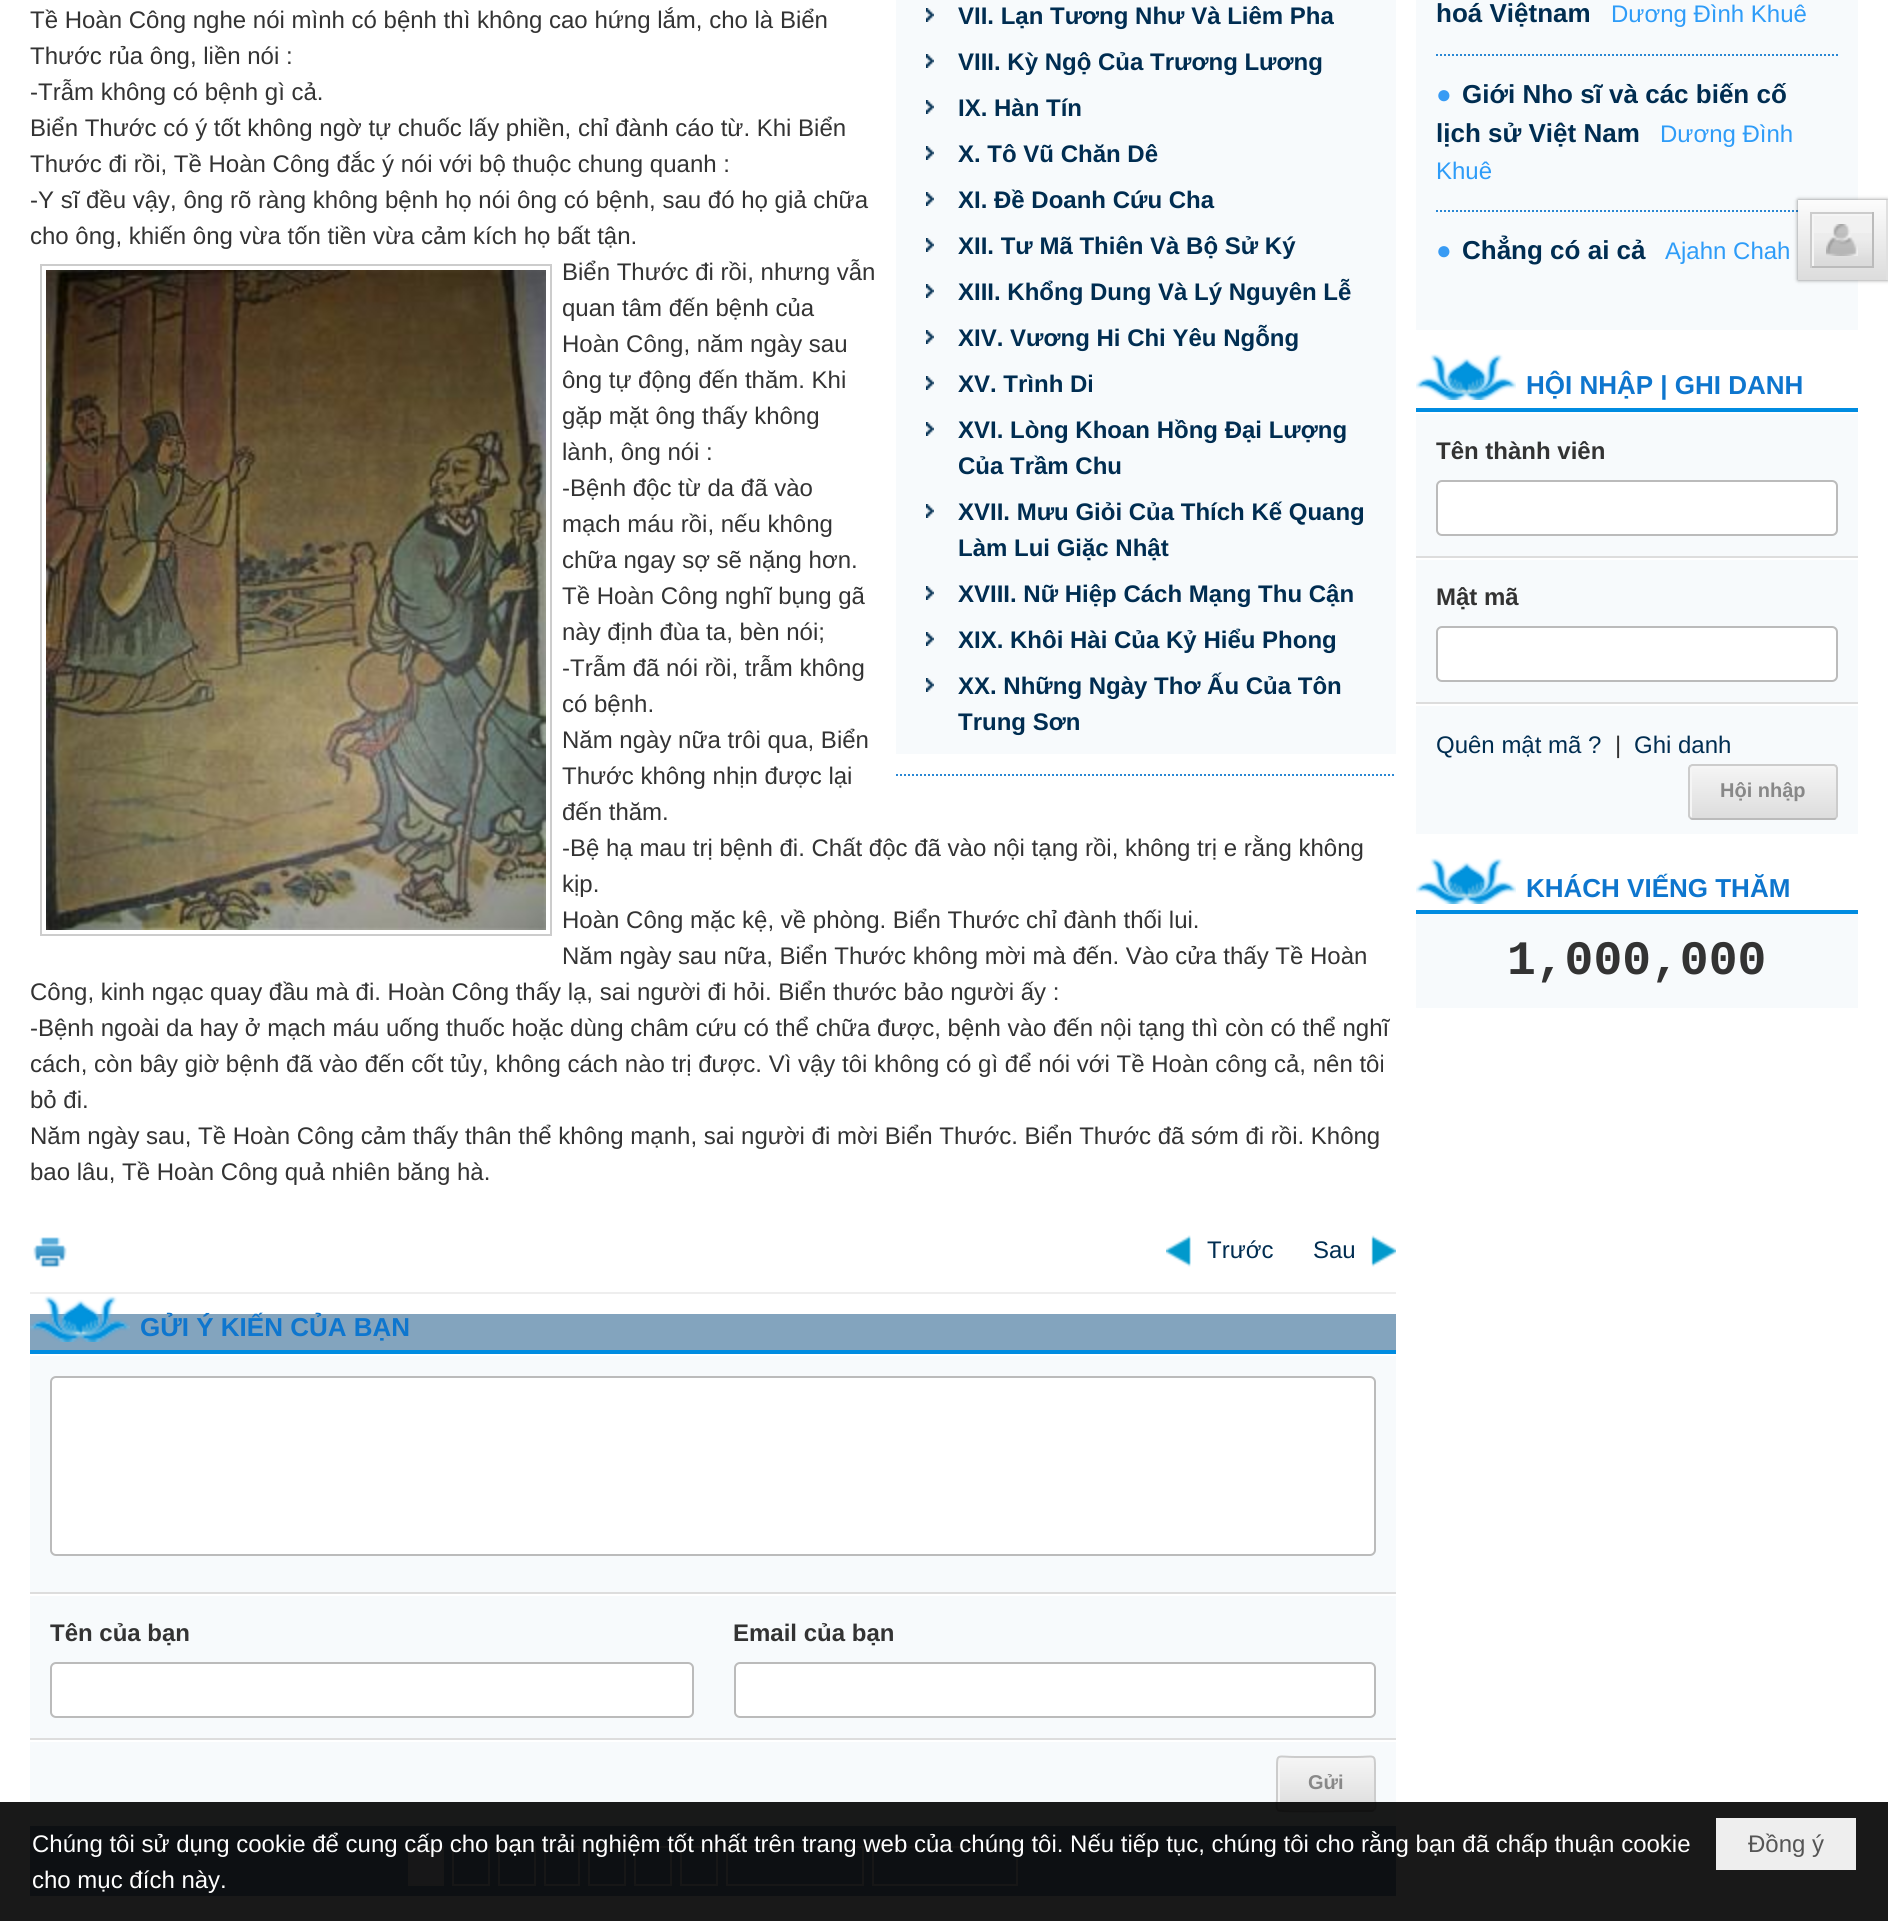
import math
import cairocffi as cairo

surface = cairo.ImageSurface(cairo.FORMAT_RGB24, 1888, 1921)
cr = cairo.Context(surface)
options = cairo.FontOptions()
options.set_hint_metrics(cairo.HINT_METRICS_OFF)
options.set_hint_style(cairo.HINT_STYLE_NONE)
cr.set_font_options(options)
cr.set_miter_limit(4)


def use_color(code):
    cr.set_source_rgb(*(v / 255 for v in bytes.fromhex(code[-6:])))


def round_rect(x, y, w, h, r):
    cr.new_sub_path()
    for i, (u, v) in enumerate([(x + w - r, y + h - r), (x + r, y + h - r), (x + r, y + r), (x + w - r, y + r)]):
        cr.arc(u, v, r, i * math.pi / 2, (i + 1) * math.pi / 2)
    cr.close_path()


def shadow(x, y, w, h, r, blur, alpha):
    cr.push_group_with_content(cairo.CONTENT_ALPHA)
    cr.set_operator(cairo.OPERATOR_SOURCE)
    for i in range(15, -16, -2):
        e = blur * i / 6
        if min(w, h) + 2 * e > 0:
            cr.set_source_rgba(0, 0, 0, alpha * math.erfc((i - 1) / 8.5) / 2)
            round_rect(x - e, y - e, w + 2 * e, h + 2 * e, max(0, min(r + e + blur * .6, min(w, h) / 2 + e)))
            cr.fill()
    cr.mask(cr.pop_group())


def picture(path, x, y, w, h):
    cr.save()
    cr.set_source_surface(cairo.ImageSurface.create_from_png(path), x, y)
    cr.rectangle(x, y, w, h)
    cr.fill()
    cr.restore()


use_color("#ffffff")
cr.paint()
cr.select_font_face("Liberation Sans")
cr.set_font_size(24)
use_color("#333333")
cr.move_to(30, 28)
cr.show_text("Tề Hoàn Công nghe nói mình có bệnh thì không cao hứng lắm, cho là Biển")
cr.new_path()
cr.move_to(896, 775)
cr.line_to(1396, 775)
use_color("#2987d4")
cr.set_dash([2, 2])
cr.stroke()
use_color("#f7fafc")
cr.rectangle(896, 0, 500, 754)
cr.fill()
picture("img1.png", 926, 8, 8, 14)
cr.select_font_face("Liberation Sans", cairo.FONT_SLANT_NORMAL, cairo.FONT_WEIGHT_BOLD)
use_color("#002d51")
cr.move_to(958, 24)
cr.show_text("VII. Lạn Tương Như Và Liêm Pha")
picture("img1.png", 926, 54, 8, 14)
cr.move_to(958, 70)
cr.show_text("VIII. Kỳ Ngộ Của Trương Lương")
picture("img1.png", 926, 100, 8, 14)
cr.move_to(958, 116)
cr.show_text("IX. Hàn Tín")
picture("img1.png", 926, 146, 8, 14)
cr.move_to(958, 162)
cr.show_text("X. Tô Vũ Chăn Dê")
picture("img1.png", 926, 192, 8, 14)
cr.move_to(958, 208)
cr.show_text("XI. Đề Doanh Cứu Cha")
picture("img1.png", 926, 238, 8, 14)
cr.move_to(958, 254)
cr.show_text("XII. Tư Mã Thiên Và Bộ Sử Ký")
picture("img1.png", 926, 284, 8, 14)
cr.move_to(958, 300)
cr.show_text("XIII. Khổng Dung Và Lý Nguyên Lễ")
picture("img1.png", 926, 330, 8, 14)
cr.move_to(958, 346)
cr.show_text("XIV. Vương Hi Chi Yêu Ngỗng")
picture("img1.png", 926, 376, 8, 14)
cr.move_to(958, 392)
cr.show_text("XV. Trình Di")
picture("img1.png", 926, 422, 8, 14)
cr.move_to(958, 438)
cr.show_text("XVI. Lòng Khoan Hồng Đại Lượng")
cr.move_to(958, 474)
cr.show_text("Của Trầm Chu")
picture("img1.png", 926, 504, 8, 14)
cr.move_to(958, 520)
cr.show_text("XVII. Mưu Giỏi Của Thích Kế Quang")
cr.move_to(958, 556)
cr.show_text("Làm Lui Giặc Nhật")
picture("img1.png", 926, 586, 8, 14)
cr.move_to(958, 602)
cr.show_text("XVIII. Nữ Hiệp Cách Mạng Thu Cận")
picture("img1.png", 926, 632, 8, 14)
cr.move_to(958, 648)
cr.show_text("XIX. Khôi Hài Của Kỷ Hiểu Phong")
picture("img1.png", 926, 678, 8, 14)
cr.move_to(958, 694)
cr.show_text("XX. Những Ngày Thơ Ấu Của Tôn")
cr.move_to(958, 730)
cr.show_text("Trung Sơn")
cr.select_font_face("Liberation Sans")
use_color("#333333")
cr.move_to(30, 64)
cr.show_text("Thước rủa ông, liền nói :")
cr.move_to(30, 100)
cr.show_text("-Trẫm không có bệnh gì cả.")
cr.move_to(30, 136)
cr.show_text("Biển Thước có ý tốt không ngờ tự chuốc lấy phiền, chỉ đành cáo từ. Khi Biển")
cr.move_to(30, 172)
cr.show_text("Thước đi rồi, Tề Hoàn Công đắc ý nói với bộ thuộc chung quanh :")
cr.move_to(30, 208)
cr.show_text("-Y sĩ đều vậy, ông rõ ràng không bệnh họ nói ông có bệnh, sau đó họ giả chữa")
cr.move_to(30, 244)
cr.show_text("cho ông, khiến ông vừa tốn tiền vừa cảm kích họ bất tận.")
cr.rectangle(41, 265, 510, 670)
use_color("#cccccc")
cr.set_dash([])
cr.stroke()
picture("img2.png", 46, 270, 500, 660)
use_color("#333333")
cr.move_to(562, 280)
cr.show_text("Biển Thước đi rồi, nhưng vẫn")
cr.move_to(562, 316)
cr.show_text("quan tâm đến bệnh của")
cr.move_to(562, 352)
cr.show_text("Hoàn Công, năm ngày sau")
cr.move_to(562, 388)
cr.show_text("ông tự động đến thăm. Khi")
cr.move_to(562, 424)
cr.show_text("gặp mặt ông thấy không")
cr.move_to(562, 460)
cr.show_text("lành, ông nói :")
cr.move_to(562, 496)
cr.show_text("-Bệnh độc từ da đã vào")
cr.move_to(562, 532)
cr.show_text("mạch máu rồi, nếu không")
cr.move_to(562, 568)
cr.show_text("chữa ngay sợ sẽ nặng hơn.")
cr.move_to(562, 604)
cr.show_text("Tề Hoàn Công nghĩ bụng gã")
cr.move_to(562, 640)
cr.show_text("này định đùa ta, bèn nói;")
cr.move_to(562, 676)
cr.show_text("-Trẫm đã nói rồi, trẫm không")
cr.move_to(562, 712)
cr.show_text("có bệnh.")
cr.move_to(562, 748)
cr.show_text("Năm ngày nữa trôi qua, Biển")
cr.move_to(562, 784)
cr.show_text("Thước không nhịn được lại")
cr.move_to(562, 820)
cr.show_text("đến thăm.")
cr.move_to(562, 856)
cr.show_text("-Bệ hạ mau trị bệnh đi. Chất độc đã vào nội tạng rồi, không trị e rằng không")
cr.move_to(562, 892)
cr.show_text("kịp.")
cr.move_to(562, 928)
cr.show_text("Hoàn Công mặc kệ, về phòng. Biển Thước chỉ đành thối lui.")
cr.move_to(562, 964)
cr.show_text("Năm ngày sau nữa, Biển Thước không mời mà đến. Vào cửa thấy Tề Hoàn")
cr.move_to(30, 1000)
cr.show_text("Công, kinh ngạc quay đầu mà đi. Hoàn Công thấy lạ, sai người đi hỏi. Biển thước bảo người ấy :")
cr.move_to(30, 1036)
cr.show_text("-Bệnh ngoài da hay ở mạch máu uống thuốc hoặc dùng châm cứu có thể chữa được, bệnh vào đến nội tạng thì còn có thể nghĩ")
cr.move_to(30, 1072)
cr.show_text("cách, còn bây giờ bệnh đã vào đến cốt tủy, không cách nào trị được. Vì vậy tôi không có gì để nói với Tề Hoàn công cả, nên tôi")
cr.move_to(30, 1108)
cr.show_text("bỏ đi.")
cr.move_to(30, 1144)
cr.show_text("Năm ngày sau, Tề Hoàn Công cảm thấy thân thể không mạnh, sai người đi mời Biển Thước. Biển Thước đã sớm đi rồi. Không")
cr.move_to(30, 1180)
cr.show_text("bao lâu, Tề Hoàn Công quả nhiên băng hà.")
picture("img3.png", 33, 1237, 34, 31)
picture("img4.png", 1166, 1235, 25, 32)
use_color("#002d51")
cr.move_to(1207, 1258)
cr.show_text("Trước")
picture("img5.png", 1371, 1235, 25, 32)
cr.move_to(1313, 1258)
cr.show_text("Sau")
use_color("#83a4be")
cr.rectangle(30, 1314, 1366, 582)
cr.fill()
picture("img6.png", 30, 1296, 100, 46)
use_color("#008ce1")
cr.rectangle(30, 1350, 1366, 4)
cr.fill()
cr.select_font_face("Liberation Sans", cairo.FONT_SLANT_NORMAL, cairo.FONT_WEIGHT_BOLD)
cr.set_font_size(26)
use_color("#0e76ce")
cr.move_to(140, 1336)
cr.show_text("GỬI Ý KIẾN CỦA BẠN")
use_color("#f7fafc")
cr.rectangle(30, 1356, 1366, 470)
cr.fill()
use_color("#ffffff")
cr.rectangle(30, 1354, 1366, 2)
cr.fill()
use_color("#dddddd")
cr.rectangle(30, 1592, 1366, 2)
cr.fill()
use_color("#ffffff")
round_rect(51, 1377, 1324, 178, 5)
cr.fill_preserve()
use_color("#bbbbbb")
cr.stroke()
use_color("#ffffff")
cr.rectangle(30, 1594, 1366, 2)
cr.fill()
use_color("#dddddd")
cr.rectangle(30, 1738, 1366, 2)
cr.fill()
cr.set_font_size(24)
use_color("#333333")
cr.move_to(50, 1641)
cr.show_text("Tên của bạn")
use_color("#ffffff")
round_rect(51, 1663, 642, 54, 5)
cr.fill_preserve()
use_color("#bbbbbb")
cr.stroke()
use_color("#333333")
cr.move_to(733, 1641)
cr.show_text("Email của bạn")
use_color("#ffffff")
round_rect(735, 1663, 640, 54, 5)
cr.fill_preserve()
use_color("#bbbbbb")
cr.stroke()
use_color("#ffffff")
cr.rectangle(30, 1740, 1366, 2)
cr.fill()
gradient = cairo.LinearGradient(1326, 1758, 1326, 1810)
gradient.add_color_stop_rgba(0, 0.961, 0.961, 0.961, 1)
gradient.add_color_stop_rgba(1, 0.867, 0.867, 0.867, 1)
cr.set_source(gradient)
round_rect(1278, 1758, 96, 52, 2)
cr.fill()
use_color("#f5f5f5")
cr.new_path()
cr.move_to(1282, 1760)
cr.line_to(1374, 1760)
cr.curve_to(1374, 1759, 1373, 1758, 1372, 1758)
cr.line_to(1280, 1758)
cr.curve_to(1279, 1758, 1278, 1759, 1278, 1760)
cr.line_to(1278, 1808)
cr.curve_to(1278, 1809, 1279, 1810, 1280, 1810)
cr.line_to(1280, 1762)
cr.curve_to(1280, 1761, 1281, 1760, 1282, 1760)
cr.close_path()
cr.fill()
cr.new_path()
cr.move_to(1374, 1810)
cr.line_to(1372, 1811)
cr.line_to(1356.5, 1811)
cr.curve_to(1348.5, 1811, 1280, 1812, 1278, 1810.5)
cr.line_to(1278, 1810)
use_color("#bbbbbb")
cr.stroke()
cr.new_path()
cr.move_to(1278, 1810)
cr.curve_to(1275.5, 1808, 1277, 1800.5, 1277, 1800)
cr.line_to(1277, 1768)
cr.curve_to(1277, 1753, 1277, 1757, 1295.5, 1757)
cr.line_to(1356.5, 1757)
cr.curve_to(1375, 1757, 1375, 1753, 1375, 1768)
cr.line_to(1375, 1800)
cr.curve_to(1375, 1800.5, 1376.5, 1808, 1374, 1810)
use_color("#cccccc")
cr.stroke()
cr.set_font_size(20)
use_color("#888888")
cr.move_to(1308, 1789)
cr.show_text("Gửi")
use_color("#eeeeee")
cr.rectangle(30, 1292, 1366, 2)
cr.fill()
use_color("#e9eef2")
cr.rectangle(409, 1847, 34, 38)
cr.fill_preserve()
use_color("#eeeeee")
cr.stroke()
cr.rectangle(453, 1847, 36, 38)
cr.stroke()
cr.rectangle(499, 1847, 36, 38)
cr.stroke()
cr.rectangle(545, 1847, 34, 38)
cr.stroke()
cr.rectangle(589, 1847, 36, 38)
cr.stroke()
cr.rectangle(635, 1847, 36, 38)
cr.stroke()
cr.rectangle(681, 1847, 36, 38)
cr.stroke()
cr.rectangle(727, 1847, 136, 38)
cr.stroke()
cr.rectangle(873, 1847, 144, 38)
cr.stroke()
use_color("#f7fafc")
cr.rectangle(1416, 0, 442, 330)
cr.fill()
cr.new_path()
cr.move_to(1436, 55)
cr.line_to(1838, 55)
use_color("#2987d4")
cr.set_dash([2, 2])
cr.stroke()
cr.set_font_size(26)
use_color("#002d51")
cr.move_to(1436, 22)
cr.show_text("hoá Việtnam")
cr.select_font_face("Liberation Sans")
cr.set_font_size(24)
use_color("#2e9cf8")
cr.move_to(1611, 22)
cr.show_text("Dương Đình Khuê")
cr.new_path()
cr.move_to(1436, 211)
cr.line_to(1838, 211)
use_color("#2987d4")
cr.stroke()
cr.set_font_size(26)
use_color("#389bf4")
cr.move_to(1436, 103)
cr.show_text("●")
cr.select_font_face("Liberation Sans", cairo.FONT_SLANT_NORMAL, cairo.FONT_WEIGHT_BOLD)
use_color("#002d51")
cr.move_to(1462, 103)
cr.show_text("Giới Nho sĩ và các biến cố")
cr.move_to(1436, 142)
cr.show_text("lịch sử Việt Nam")
cr.select_font_face("Liberation Sans")
cr.set_font_size(24)
use_color("#2e9cf8")
cr.move_to(1660, 142)
cr.show_text("Dương Đình")
cr.move_to(1436, 179)
cr.show_text("Khuê")
cr.set_font_size(26)
use_color("#389bf4")
cr.move_to(1436, 259)
cr.show_text("●")
cr.select_font_face("Liberation Sans", cairo.FONT_SLANT_NORMAL, cairo.FONT_WEIGHT_BOLD)
use_color("#002d51")
cr.move_to(1462, 259)
cr.show_text("Chẳng có ai cả")
cr.select_font_face("Liberation Sans")
cr.set_font_size(24)
use_color("#2e9cf8")
cr.move_to(1665, 259)
cr.show_text("Ajahn Chah")
picture("img7.png", 1416, 354, 100, 46)
use_color("#008ce1")
cr.rectangle(1416, 408, 442, 4)
cr.fill()
cr.select_font_face("Liberation Sans", cairo.FONT_SLANT_NORMAL, cairo.FONT_WEIGHT_BOLD)
cr.set_font_size(26)
use_color("#0e76ce")
cr.move_to(1526, 394)
cr.show_text("HỘI NHẬP | GHI DANH")
use_color("#f7fafc")
cr.rectangle(1416, 414, 442, 420)
cr.fill()
use_color("#dddddd")
cr.rectangle(1416, 556, 442, 2)
cr.fill()
cr.set_font_size(24)
use_color("#333333")
cr.move_to(1436, 459)
cr.show_text("Tên thành viên")
use_color("#ffffff")
round_rect(1437, 481, 400, 54, 5)
cr.fill_preserve()
use_color("#bbbbbb")
cr.set_dash([])
cr.stroke()
use_color("#ffffff")
cr.rectangle(1416, 558, 442, 2)
cr.fill()
use_color("#dddddd")
cr.rectangle(1416, 702, 442, 2)
cr.fill()
use_color("#333333")
cr.move_to(1436, 605)
cr.show_text("Mật mã")
use_color("#ffffff")
round_rect(1437, 627, 400, 54, 5)
cr.fill_preserve()
use_color("#bbbbbb")
cr.stroke()
use_color("#ffffff")
cr.rectangle(1416, 704, 442, 2)
cr.fill()
cr.select_font_face("Liberation Sans")
use_color("#002d51")
cr.move_to(1436, 753)
cr.show_text("Quên mật mã ?")
use_color("#333333")
cr.move_to(1615, 753)
cr.show_text("|")
use_color("#002d51")
cr.move_to(1634, 753)
cr.show_text("Ghi danh")
gradient = cairo.LinearGradient(1763, 766, 1763, 818)
gradient.add_color_stop_rgba(0, 0.961, 0.961, 0.961, 1)
gradient.add_color_stop_rgba(1, 0.867, 0.867, 0.867, 1)
cr.set_source(gradient)
round_rect(1690, 766, 146, 52, 2)
cr.fill()
use_color("#f5f5f5")
cr.new_path()
cr.move_to(1694, 768)
cr.line_to(1836, 768)
cr.curve_to(1836, 767, 1835, 766, 1834, 766)
cr.line_to(1692, 766)
cr.curve_to(1691, 766, 1690, 767, 1690, 768)
cr.line_to(1690, 816)
cr.curve_to(1690, 817, 1691, 818, 1692, 818)
cr.line_to(1692, 770)
cr.curve_to(1692, 769, 1693, 768, 1694, 768)
cr.close_path()
cr.fill()
cr.new_path()
cr.move_to(1836, 818)
cr.line_to(1834.5, 819)
cr.line_to(1715.5, 819)
cr.line_to(1692, 819)
cr.line_to(1690, 818)
use_color("#bbbbbb")
cr.stroke()
cr.new_path()
cr.move_to(1690, 818)
cr.line_to(1689, 816)
cr.line_to(1689, 768)
cr.line_to(1690, 766)
cr.line_to(1692, 765)
cr.line_to(1834, 765)
cr.line_to(1836, 766)
cr.line_to(1837, 768)
cr.line_to(1837, 816)
cr.line_to(1836, 818)
use_color("#cccccc")
cr.stroke()
cr.select_font_face("Liberation Sans", cairo.FONT_SLANT_NORMAL, cairo.FONT_WEIGHT_BOLD)
cr.set_font_size(20)
use_color("#888888")
cr.move_to(1720, 797)
cr.show_text("Hội nhập")
picture("img7.png", 1416, 858, 100, 46)
use_color("#008ce1")
cr.rectangle(1416, 910, 442, 4)
cr.fill()
cr.set_font_size(26)
use_color("#0e76ce")
cr.move_to(1526, 897)
cr.show_text("KHÁCH VIẾNG THĂM")
use_color("#f7fafc")
cr.rectangle(1416, 914, 442, 94)
cr.fill()
cr.select_font_face("Liberation Mono", cairo.FONT_SLANT_NORMAL, cairo.FONT_WEIGHT_BOLD)
cr.set_font_size(48)
use_color("#333333")
cr.move_to(1507, 974)
cr.show_text("1,000,000")
use_color("#000000")
shadow(1798, 200, 90, 80, 0, 2, 0.5)
gradient = cairo.LinearGradient(1842, 200, 1842, 280)
gradient.add_color_stop_rgba(0, 0.988, 0.988, 0.988, 1)
gradient.add_color_stop_rgba(1, 0.863, 0.863, 0.863, 1)
cr.set_source(gradient)
cr.rectangle(1798, 200, 88, 80)
cr.fill()
use_color("#e0e0e0")
cr.rectangle(1886, 200, 2, 80)
cr.fill()
use_color("#f1f1f1")
cr.rectangle(1814, 216, 58, 50)
cr.fill()
picture("img8.png", 1814, 233, 58, 33)
cr.save()
cr.rectangle(1812, 214, 60, 52)
cr.clip()
use_color("#f5f5f5")
cr.set_fill_rule(cairo.FILL_RULE_EVEN_ODD)
cr.new_path()
cr.move_to(1614, 16)
cr.line_to(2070, 16)
cr.line_to(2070, 464)
cr.line_to(1614, 464)
cr.close_path()
cr.move_to(1814, 216)
cr.line_to(1874, 216)
cr.line_to(1874, 268)
cr.line_to(1814, 268)
cr.close_path()
cr.fill()
cr.restore()
use_color("#cccccc")
cr.rectangle(1810, 212, 64, 2)
cr.fill()
use_color("#bbbbbb")
cr.rectangle(1872, 212, 2, 56)
cr.fill()
cr.rectangle(1810, 266, 64, 2)
cr.fill()
use_color("#cccccc")
cr.rectangle(1810, 212, 2, 56)
cr.fill()
picture("img9.png", 1826, 224, 32, 32)
cr.set_source_rgba(0, 0, 0, 0.9)
cr.rectangle(0, 1802, 1888, 119)
cr.fill()
cr.select_font_face("Liberation Sans")
cr.set_font_size(24)
use_color("#ffffff")
cr.move_to(32, 1852)
cr.show_text("Chúng tôi sử dụng cookie để cung cấp cho bạn trải nghiệm tốt nhất trên trang web của chúng tôi. Nếu tiếp tục, chúng tôi cho rằng bạn đã chấp thuận cookie")
cr.move_to(32, 1888)
cr.show_text("cho mục đích này.")
use_color("#eeeeee")
cr.rectangle(1716, 1818, 140, 52)
cr.fill()
use_color("#555555")
cr.move_to(1748, 1852)
cr.show_text("Đồng ý")
surface.write_to_png("result.png")
